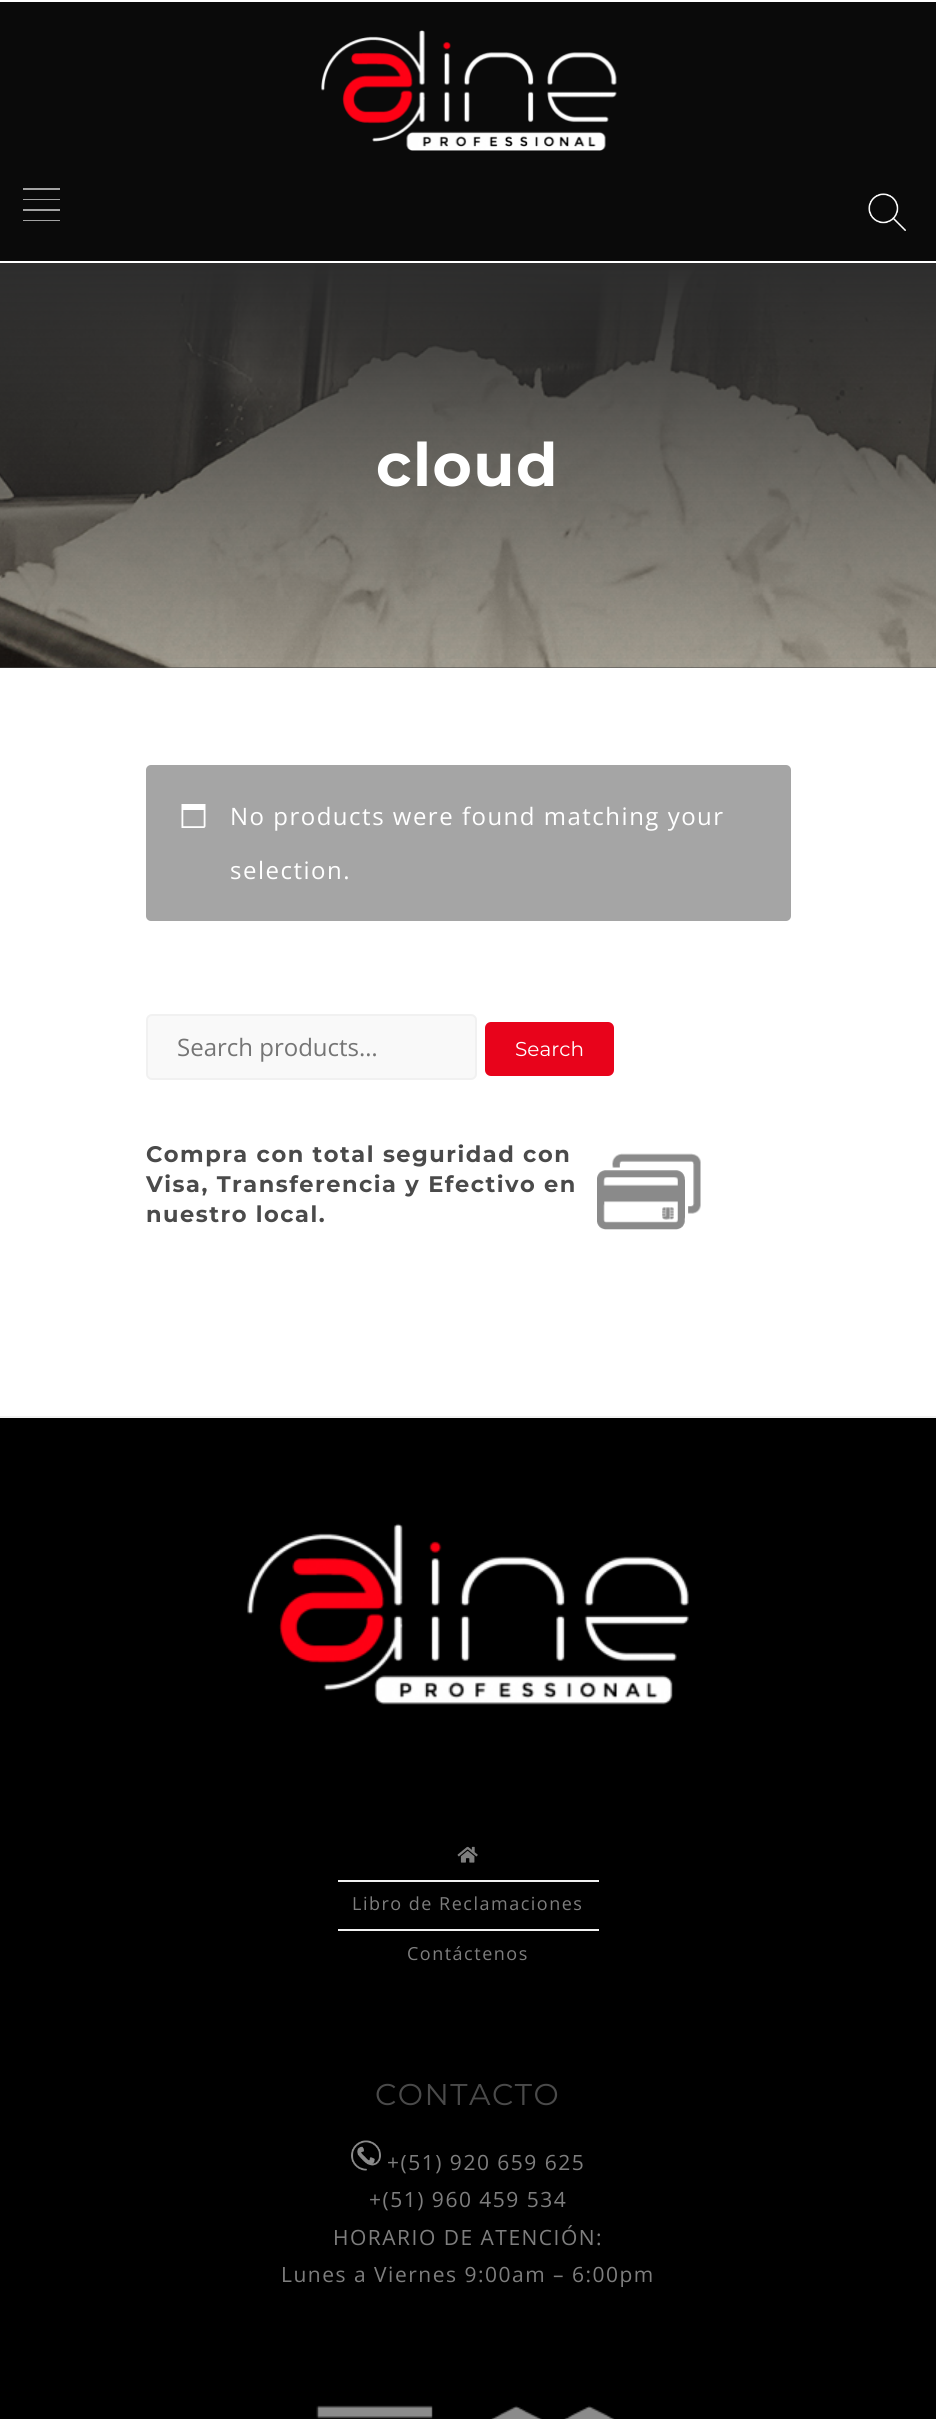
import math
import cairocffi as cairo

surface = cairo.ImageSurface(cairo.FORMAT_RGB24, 936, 2419)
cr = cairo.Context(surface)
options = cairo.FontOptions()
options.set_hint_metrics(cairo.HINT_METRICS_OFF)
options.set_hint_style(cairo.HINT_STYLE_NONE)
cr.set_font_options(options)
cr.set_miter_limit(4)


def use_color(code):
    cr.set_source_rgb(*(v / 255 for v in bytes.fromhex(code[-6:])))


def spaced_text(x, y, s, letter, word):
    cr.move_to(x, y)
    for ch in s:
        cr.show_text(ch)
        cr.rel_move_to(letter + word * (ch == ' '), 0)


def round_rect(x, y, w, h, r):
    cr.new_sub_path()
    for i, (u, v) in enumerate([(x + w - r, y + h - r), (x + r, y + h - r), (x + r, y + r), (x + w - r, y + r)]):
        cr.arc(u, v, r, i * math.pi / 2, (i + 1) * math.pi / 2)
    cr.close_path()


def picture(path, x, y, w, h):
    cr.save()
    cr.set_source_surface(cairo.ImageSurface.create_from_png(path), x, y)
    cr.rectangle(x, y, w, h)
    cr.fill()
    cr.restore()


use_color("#ffffff")
cr.paint()
use_color("#0a0a0a")
cr.rectangle(0, 2, 936, 259)
cr.fill()
picture("img1.png", 321, 30, 296, 121)
use_color("#a3a3a3")
cr.rectangle(23, 188, 37, 2)
cr.fill()
cr.rectangle(23, 199, 37, 1)
cr.fill()
cr.rectangle(23, 209, 37, 2)
cr.fill()
cr.rectangle(23, 220, 37, 1)
cr.fill()
picture("img2.png", 868, 193, 38, 38)
use_color("#444444")
cr.rectangle(0, 667, 936, 1)
cr.fill()
picture("img3.png", 0, 264, 936, 404)
gradient = cairo.LinearGradient(468, 262, 468, 668)
gradient.add_color_stop_rgba(0, 0.176, 0.176, 0.176, 1)
gradient.add_color_stop_rgba(1, 0.176, 0.176, 0.176, 0)
cr.set_source(gradient)
cr.rectangle(0, 263, 936, 396)
cr.fill()
cr.select_font_face("Montserrat", cairo.FONT_SLANT_NORMAL, cairo.FONT_WEIGHT_BOLD)
cr.set_font_size(60)
use_color("#ffffff")
spaced_text(376, 486, "cloud", 1.5, 0)
use_color("#a5a5a5")
round_rect(146, 765, 645, 156, 5)
cr.fill()
picture("img4.png", 181, 804, 25, 24)
cr.select_font_face("Open Sans")
cr.set_font_size(24)
use_color("#ffffff")
spaced_text(230, 825, "No products were found matching your", 1.5, 0)
spaced_text(230, 879, "selection.", 1.5, 0)
use_color("#f9f9f9")
round_rect(147, 1015, 329, 64, 5)
cr.fill_preserve()
use_color("#f1f1f1")
cr.stroke()
use_color("#757575")
cr.move_to(177, 1056)
cr.show_text("Search products…")
use_color("#e8031b")
round_rect(485, 1022, 129, 54, 6)
cr.fill()
cr.select_font_face("Montserrat")
cr.set_font_size(20)
use_color("#ffffff")
cr.move_to(515, 1056)
cr.show_text("Search")
cr.select_font_face("Montserrat", cairo.FONT_SLANT_NORMAL, cairo.FONT_WEIGHT_BOLD)
cr.set_font_size(22.5)
use_color("#4a4a4a")
spaced_text(146, 1162, "Compra con total seguridad con", 1.5, 0)
spaced_text(146, 1192, "Visa, Transferencia y Efectivo en", 1.5, 0)
spaced_text(146, 1222, "nuestro local.", 1.5, 0)
picture("img5.png", 597, 1153, 104, 77)
use_color("#000000")
cr.rectangle(0, 1418, 936, 1001)
cr.fill()
use_color("#f1f1f1")
cr.rectangle(0, 1416, 936, 2)
cr.fill()
picture("img6.png", 247, 1523, 442, 182)
cr.rectangle(338, 1880, 261, 2)
cr.fill()
picture("img7.png", 457, 1846, 21, 17)
cr.rectangle(338, 1929, 261, 2)
cr.fill()
cr.select_font_face("Open Sans")
cr.set_font_size(18)
use_color("#7e7e7e")
spaced_text(352, 1910, "Libro de Reclamaciones", 1.5, 0)
spaced_text(407, 1960, "Contáctenos", 1.5, 0)
cr.select_font_face("Montserrat")
cr.set_font_size(30)
use_color("#4a4a4a")
spaced_text(375, 2105, "CONTACTO", 1.5, 0)
picture("img8.png", 351, 2140, 30, 31)
cr.select_font_face("Open Sans")
cr.set_font_size(21)
use_color("#7e7e7e")
spaced_text(387, 2170, "+(51) 920 659 625", 1.5, 0)
spaced_text(369, 2207, "+(51) 960 459 534", 1.5, 0)
spaced_text(333, 2245, "HORARIO DE ATENCIÓN:", 1.5, 0)
spaced_text(281, 2282, "Lunes a Viernes 9:00am – 6:00pm", 1.5, 0)
picture("img9.png", 316, 2405, 299, 14)
surface.write_to_png("result.png")
